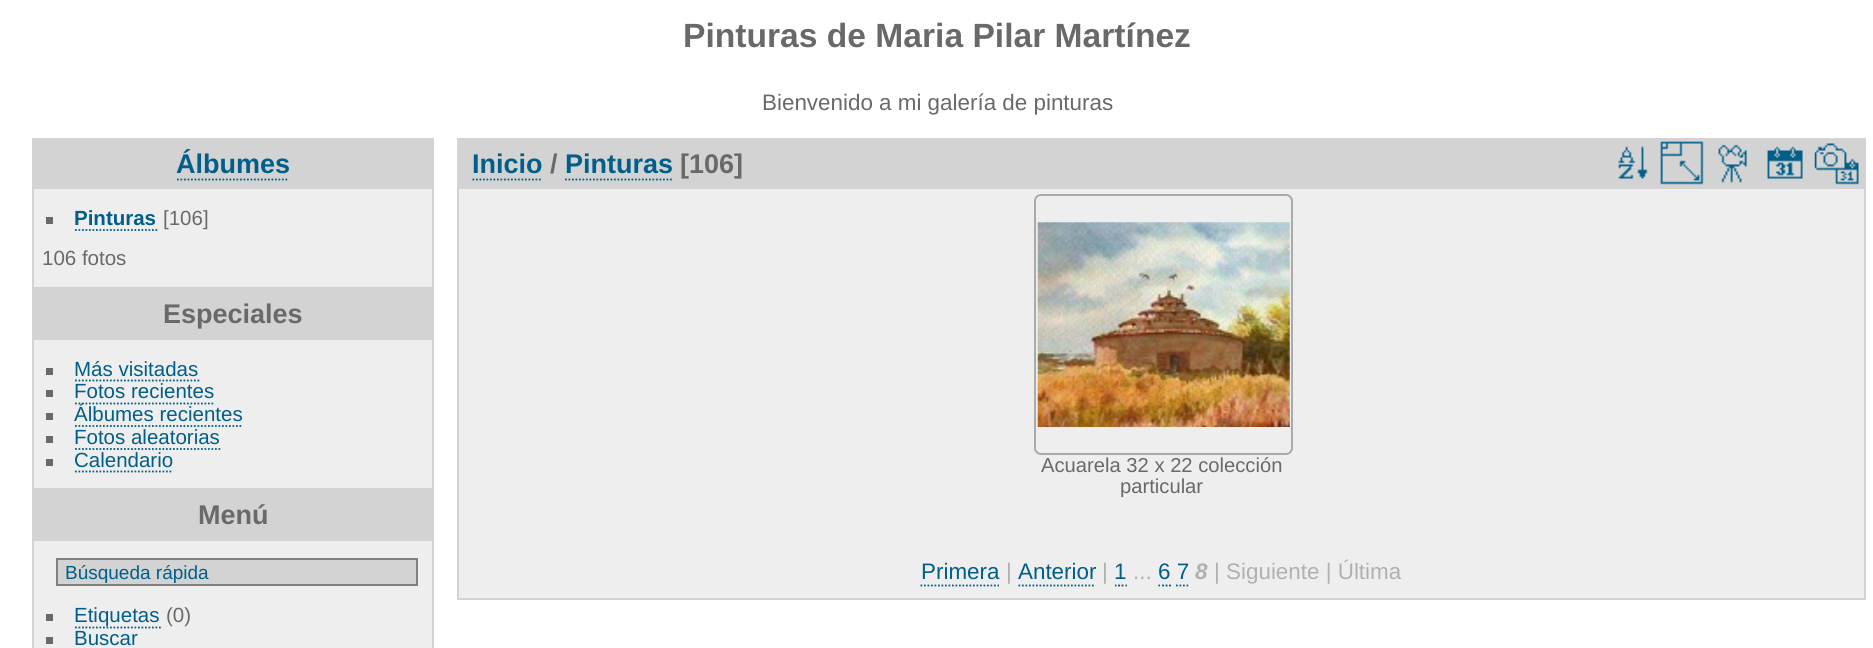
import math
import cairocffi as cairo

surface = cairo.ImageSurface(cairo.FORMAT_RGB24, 1873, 648)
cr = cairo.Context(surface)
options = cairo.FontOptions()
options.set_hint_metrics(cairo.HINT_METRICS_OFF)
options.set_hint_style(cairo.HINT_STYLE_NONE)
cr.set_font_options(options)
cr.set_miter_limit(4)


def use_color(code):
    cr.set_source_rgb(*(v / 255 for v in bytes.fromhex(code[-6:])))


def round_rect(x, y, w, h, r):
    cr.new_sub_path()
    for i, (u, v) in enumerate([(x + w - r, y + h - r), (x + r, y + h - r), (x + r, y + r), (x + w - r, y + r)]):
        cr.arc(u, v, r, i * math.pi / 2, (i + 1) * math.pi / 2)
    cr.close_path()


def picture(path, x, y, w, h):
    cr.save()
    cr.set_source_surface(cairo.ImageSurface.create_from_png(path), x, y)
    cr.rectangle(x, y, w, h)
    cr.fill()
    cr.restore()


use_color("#ffffff")
cr.paint()
cr.select_font_face("Liberation Sans", cairo.FONT_SLANT_NORMAL, cairo.FONT_WEIGHT_BOLD)
cr.set_font_size(33.6)
use_color("#696969")
cr.move_to(683, 47)
cr.show_text("Pinturas de Maria Pilar Martínez")
cr.select_font_face("Liberation Sans")
cr.set_font_size(22.4)
cr.move_to(762, 110)
cr.show_text("Bienvenido a mi galería de pinturas")
use_color("#eeeeee")
cr.rectangle(34, 189, 398, 98)
cr.fill()
cr.rectangle(33, 139, 400, 149)
use_color("#d3d3d3")
cr.stroke()
cr.rectangle(34, 140, 398, 49)
cr.fill()
cr.select_font_face("Liberation Sans", cairo.FONT_SLANT_NORMAL, cairo.FONT_WEIGHT_BOLD)
cr.set_font_size(27)
use_color("#005e89")
cr.move_to(176, 173)
cr.show_text("Álbumes")
cr.new_path()
cr.move_to(177, 179.5)
cr.line_to(289, 179.5)
cr.set_line_width(1.8)
cr.set_dash([1.75, 1.75])
cr.stroke()
use_color("#696969")
cr.rectangle(46, 217, 7, 7)
cr.fill()
cr.set_font_size(20.5)
use_color("#005e89")
cr.move_to(74, 225)
cr.show_text("Pinturas")
cr.new_path()
cr.move_to(75, 230)
cr.line_to(157.5, 230)
cr.stroke()
cr.select_font_face("Liberation Sans")
use_color("#696969")
cr.move_to(163, 225)
cr.show_text("[106]")
cr.move_to(42, 265)
cr.show_text("106 fotos")
use_color("#eeeeee")
cr.rectangle(34, 340, 398, 148)
cr.fill()
cr.rectangle(33, 290, 400, 199)
use_color("#d3d3d3")
cr.set_line_width(2)
cr.set_dash([])
cr.stroke()
cr.rectangle(34, 291, 398, 49)
cr.fill()
cr.select_font_face("Liberation Sans", cairo.FONT_SLANT_NORMAL, cairo.FONT_WEIGHT_BOLD)
cr.set_font_size(27)
use_color("#696969")
cr.move_to(163, 323)
cr.show_text("Especiales")
cr.rectangle(46, 368, 7, 7)
cr.fill()
cr.select_font_face("Liberation Sans")
cr.set_font_size(20.5)
use_color("#005e89")
cr.move_to(74, 376)
cr.show_text("Más visitadas")
cr.new_path()
cr.move_to(75, 380.5)
cr.line_to(199.5, 380.5)
cr.set_line_width(1.8)
cr.set_dash([1.75, 1.75])
cr.stroke()
use_color("#696969")
cr.rectangle(46, 390, 7, 7)
cr.fill()
use_color("#005e89")
cr.move_to(74, 398)
cr.show_text("Fotos recientes")
cr.new_path()
cr.move_to(75, 403.5)
cr.line_to(215, 403.5)
cr.stroke()
use_color("#696969")
cr.rectangle(46, 413, 7, 7)
cr.fill()
use_color("#005e89")
cr.move_to(74, 421)
cr.show_text("Álbumes recientes")
cr.new_path()
cr.move_to(75, 426)
cr.line_to(243, 426)
cr.stroke()
use_color("#696969")
cr.rectangle(46, 436, 7, 7)
cr.fill()
use_color("#005e89")
cr.move_to(74, 444)
cr.show_text("Fotos aleatorias")
cr.new_path()
cr.move_to(75, 449)
cr.line_to(220.5, 449)
cr.stroke()
use_color("#696969")
cr.rectangle(46, 459, 7, 7)
cr.fill()
use_color("#005e89")
cr.move_to(74, 467)
cr.show_text("Calendario")
cr.new_path()
cr.move_to(75, 471.5)
cr.line_to(173, 471.5)
cr.stroke()
use_color("#eeeeee")
cr.rectangle(34, 541, 398, 107)
cr.fill()
cr.rectangle(33, 491, 400, 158)
use_color("#d3d3d3")
cr.set_line_width(2)
cr.set_dash([])
cr.stroke()
cr.rectangle(34, 492, 398, 49)
cr.fill()
cr.select_font_face("Liberation Sans", cairo.FONT_SLANT_NORMAL, cairo.FONT_WEIGHT_BOLD)
cr.set_font_size(27)
use_color("#696969")
cr.move_to(198, 524)
cr.show_text("Menú")
use_color("#d3d3d3")
cr.rectangle(57, 559, 360, 26)
cr.fill_preserve()
use_color("#808080")
cr.stroke()
cr.select_font_face("Liberation Sans")
cr.set_font_size(19)
use_color("#005e89")
cr.move_to(65, 579)
cr.show_text("Búsqueda rápida")
use_color("#696969")
cr.rectangle(46, 614, 7, 7)
cr.fill()
cr.new_path()
cr.move_to(75, 627.5)
cr.line_to(161, 627.5)
use_color("#005e89")
cr.set_line_width(1.8)
cr.set_dash([1.75, 1.75])
cr.stroke()
cr.set_font_size(20.5)
cr.move_to(74, 622)
cr.show_text("Etiquetas")
use_color("#696969")
cr.move_to(166, 622)
cr.show_text("(0)")
cr.rectangle(46, 637, 7, 7)
cr.fill()
use_color("#005e89")
cr.move_to(74, 645)
cr.show_text("Buscar")
use_color("#eeeeee")
cr.rectangle(459, 189, 1405, 409)
cr.fill()
cr.rectangle(458, 139, 1407, 460)
use_color("#d3d3d3")
cr.set_line_width(2)
cr.set_dash([])
cr.stroke()
cr.rectangle(459, 140, 1405, 49)
cr.fill()
cr.select_font_face("Liberation Sans", cairo.FONT_SLANT_NORMAL, cairo.FONT_WEIGHT_BOLD)
cr.set_font_size(27)
use_color("#005e89")
cr.move_to(472, 173)
cr.show_text("Inicio")
cr.new_path()
cr.move_to(472.5, 179.5)
cr.line_to(542.5, 179.5)
cr.set_line_width(1.8)
cr.set_dash([1.75, 1.75])
cr.stroke()
use_color("#696969")
cr.move_to(550, 173)
cr.show_text("/")
use_color("#005e89")
cr.move_to(565, 173)
cr.show_text("Pinturas")
cr.new_path()
cr.move_to(565, 179.5)
cr.line_to(672, 179.5)
cr.stroke()
use_color("#696969")
cr.move_to(680, 173)
cr.show_text("[106]")
picture("img1.png", 1618, 146, 30, 33)
picture("img2.png", 1660, 141, 44, 44)
picture("img3.png", 1718, 144, 29, 39)
picture("img4.png", 1767, 146, 36, 33)
picture("img5.png", 1814, 143, 45, 42)
round_rect(1035, 195, 257, 259, 6)
use_color("#aaaaaa")
cr.set_line_width(2)
cr.set_dash([])
cr.stroke()
picture("img6.png", 1037, 222, 253, 205)
cr.select_font_face("Liberation Sans")
cr.set_font_size(20.2)
use_color("#696969")
cr.move_to(1041, 472)
cr.show_text("Acuarela 32 x 22 colección")
cr.move_to(1120, 493)
cr.show_text("particular")
cr.set_font_size(22.4)
use_color("#005e89")
cr.move_to(921, 579)
cr.show_text("Primera")
cr.new_path()
cr.move_to(920.5, 585.5)
cr.line_to(999, 585.5)
cr.set_line_width(1.8)
cr.set_dash([1.75, 1.75])
cr.stroke()
use_color("#b0b0b0")
cr.move_to(1006, 579)
cr.show_text("|")
use_color("#005e89")
cr.move_to(1018, 579)
cr.show_text("Anterior")
cr.new_path()
cr.move_to(1018.5, 585.5)
cr.line_to(1095.5, 585.5)
cr.stroke()
use_color("#b0b0b0")
cr.move_to(1102, 579)
cr.show_text("|")
use_color("#005e89")
cr.move_to(1114, 579)
cr.show_text("1")
cr.new_path()
cr.move_to(1115, 585.5)
cr.line_to(1116.5, 585.5)
cr.move_to(1118, 585.5)
cr.line_to(1120, 585.5)
cr.move_to(1121.5, 585.5)
cr.line_to(1123.5, 585.5)
cr.move_to(1125.5, 585.5)
cr.line_to(1127, 585.5)
cr.set_dash([])
cr.stroke()
use_color("#b0b0b0")
cr.move_to(1133, 579)
cr.show_text("...")
use_color("#005e89")
cr.move_to(1158, 579)
cr.show_text("6 7")
cr.new_path()
cr.move_to(1158.5, 585.5)
cr.line_to(1160, 585.5)
cr.move_to(1162, 585.5)
cr.line_to(1164, 585.5)
cr.move_to(1165.5, 585.5)
cr.line_to(1167.5, 585.5)
cr.move_to(1169, 585.5)
cr.line_to(1171, 585.5)
cr.stroke()
cr.select_font_face("Liberation Sans", cairo.FONT_SLANT_ITALIC, cairo.FONT_WEIGHT_BOLD)
use_color("#b0b0b0")
cr.move_to(1195, 579)
cr.show_text("8")
cr.select_font_face("Liberation Sans")
cr.move_to(1214, 579)
cr.show_text("| Siguiente | Última")
cr.new_path()
cr.move_to(1176, 585.5)
cr.line_to(1190, 585.5)
use_color("#005e89")
cr.set_dash([1.75, 1.75])
cr.stroke()
surface.write_to_png("result.png")
